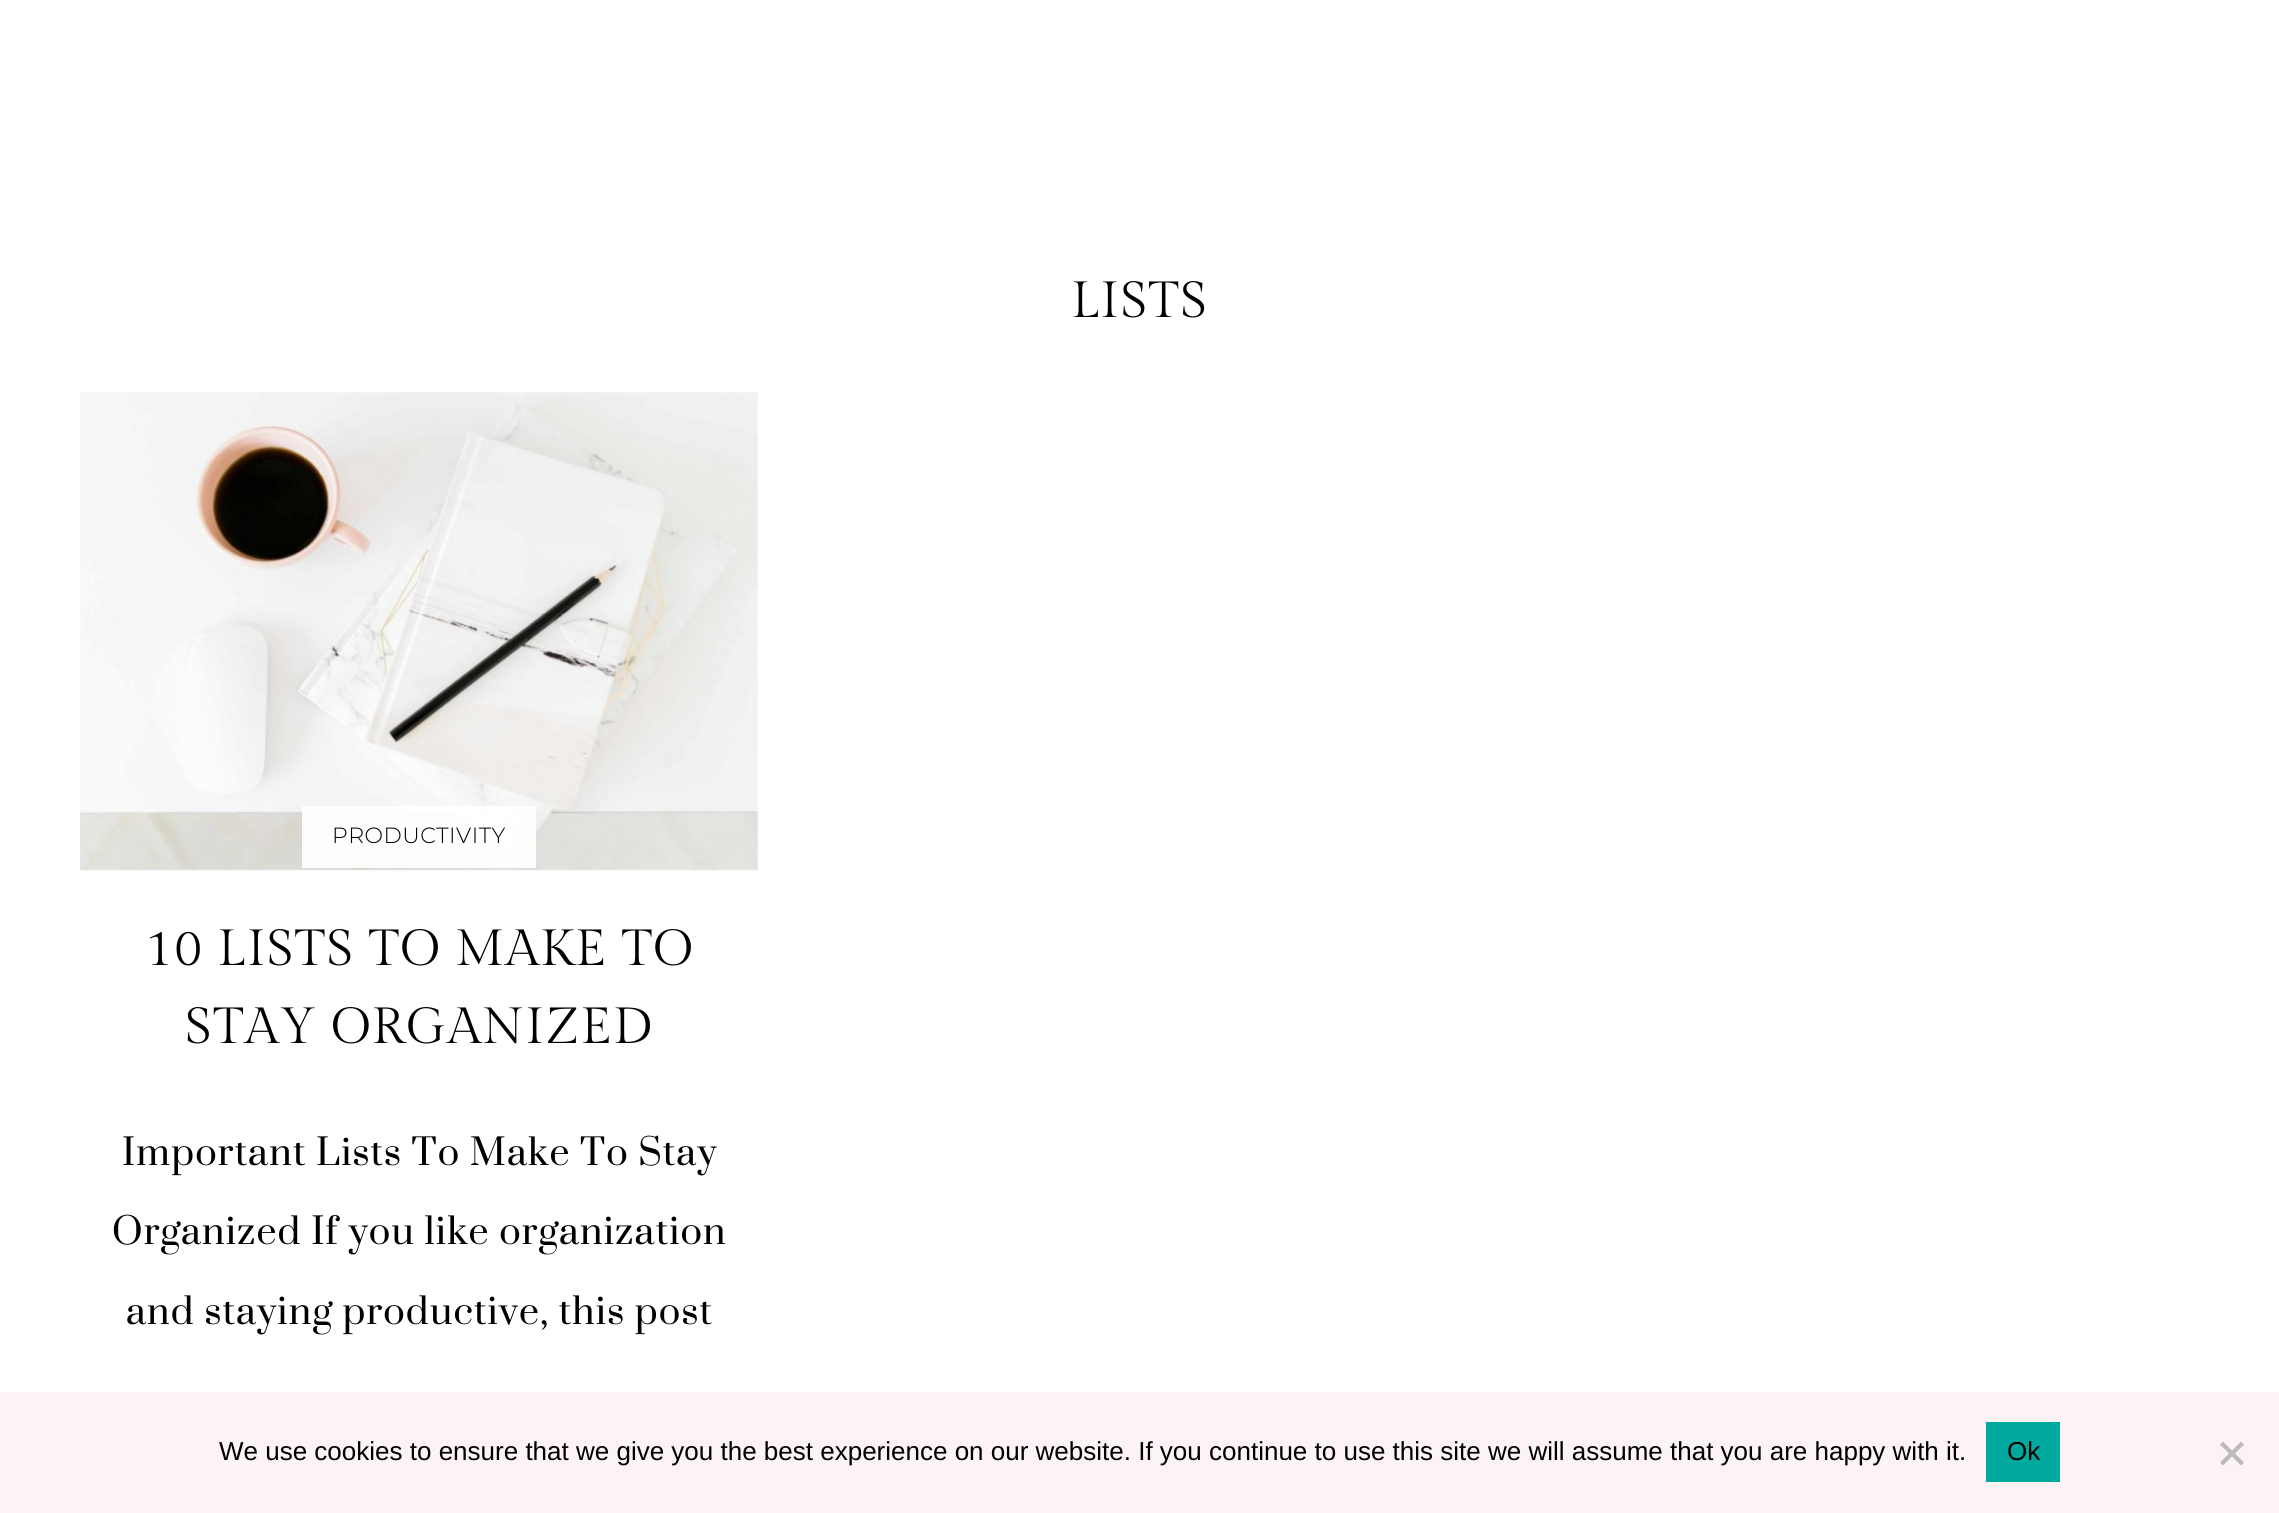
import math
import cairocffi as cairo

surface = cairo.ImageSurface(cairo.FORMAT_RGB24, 2279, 1513)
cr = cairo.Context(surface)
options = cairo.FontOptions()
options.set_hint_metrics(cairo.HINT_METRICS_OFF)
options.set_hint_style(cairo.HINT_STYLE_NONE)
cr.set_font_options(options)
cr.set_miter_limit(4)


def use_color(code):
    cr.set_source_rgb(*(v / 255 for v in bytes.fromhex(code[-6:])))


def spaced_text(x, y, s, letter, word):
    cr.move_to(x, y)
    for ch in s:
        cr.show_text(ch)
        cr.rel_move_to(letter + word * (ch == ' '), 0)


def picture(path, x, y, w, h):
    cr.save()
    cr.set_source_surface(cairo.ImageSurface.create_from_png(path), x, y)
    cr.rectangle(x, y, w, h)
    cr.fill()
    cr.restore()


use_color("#ffffff")
cr.paint()
cr.select_font_face("Gilda Display")
cr.set_font_size(50.75)
use_color("#000000")
spaced_text(1071, 317, "LISTS", 1.25, 0)
picture("img1.png", 80, 392, 679, 479)
cr.set_source_rgba(1, 1, 1, 0.95)
cr.rectangle(302, 806, 234, 62)
cr.fill()
cr.select_font_face("Montserrat Light")
cr.set_font_size(22)
use_color("#000000")
spaced_text(332, 843, "PRODUCTIVITY", 0.5, 0)
cr.select_font_face("Gilda Display")
cr.set_font_size(50.75)
spaced_text(145, 965, "10 LISTS TO MAKE TO", 1.25, 0)
spaced_text(185, 1043, "STAY ORGANIZED", 1.25, 0)
cr.select_font_face("Suranna")
cr.set_font_size(45.3)
spaced_text(122, 1165, "Important Lists To Make To Stay", 1.15, 0)
spaced_text(112, 1244, "Organized If you like organization", 1.15, 0)
spaced_text(126, 1324, "and staying productive, this post", 1.15, 0)
use_color("#fcf4f4")
cr.rectangle(0, 1392, 2279, 121)
cr.fill()
cr.select_font_face("Liberation Sans")
cr.set_font_size(26)
use_color("#000000")
cr.move_to(219, 1460)
cr.show_text("We use cookies to ensure that we give you the best experience on our website. If you continue to use this site we will assume that you are happy with it.")
use_color("#00a99d")
cr.rectangle(1986, 1422, 74, 60)
cr.fill()
use_color("#000000")
cr.move_to(2007, 1460)
cr.show_text("Ok")
use_color("#bebaba")
cr.new_path()
cr.move_to(2241, 1441.5)
cr.line_to(2244, 1444.5)
cr.line_to(2223, 1465.5)
cr.line_to(2220, 1462.5)
cr.close_path()
cr.fill()
cr.new_path()
cr.move_to(2220, 1444.5)
cr.line_to(2223, 1441.5)
cr.line_to(2244, 1462.5)
cr.line_to(2241, 1465.5)
cr.close_path()
cr.fill()
surface.write_to_png("result.png")
